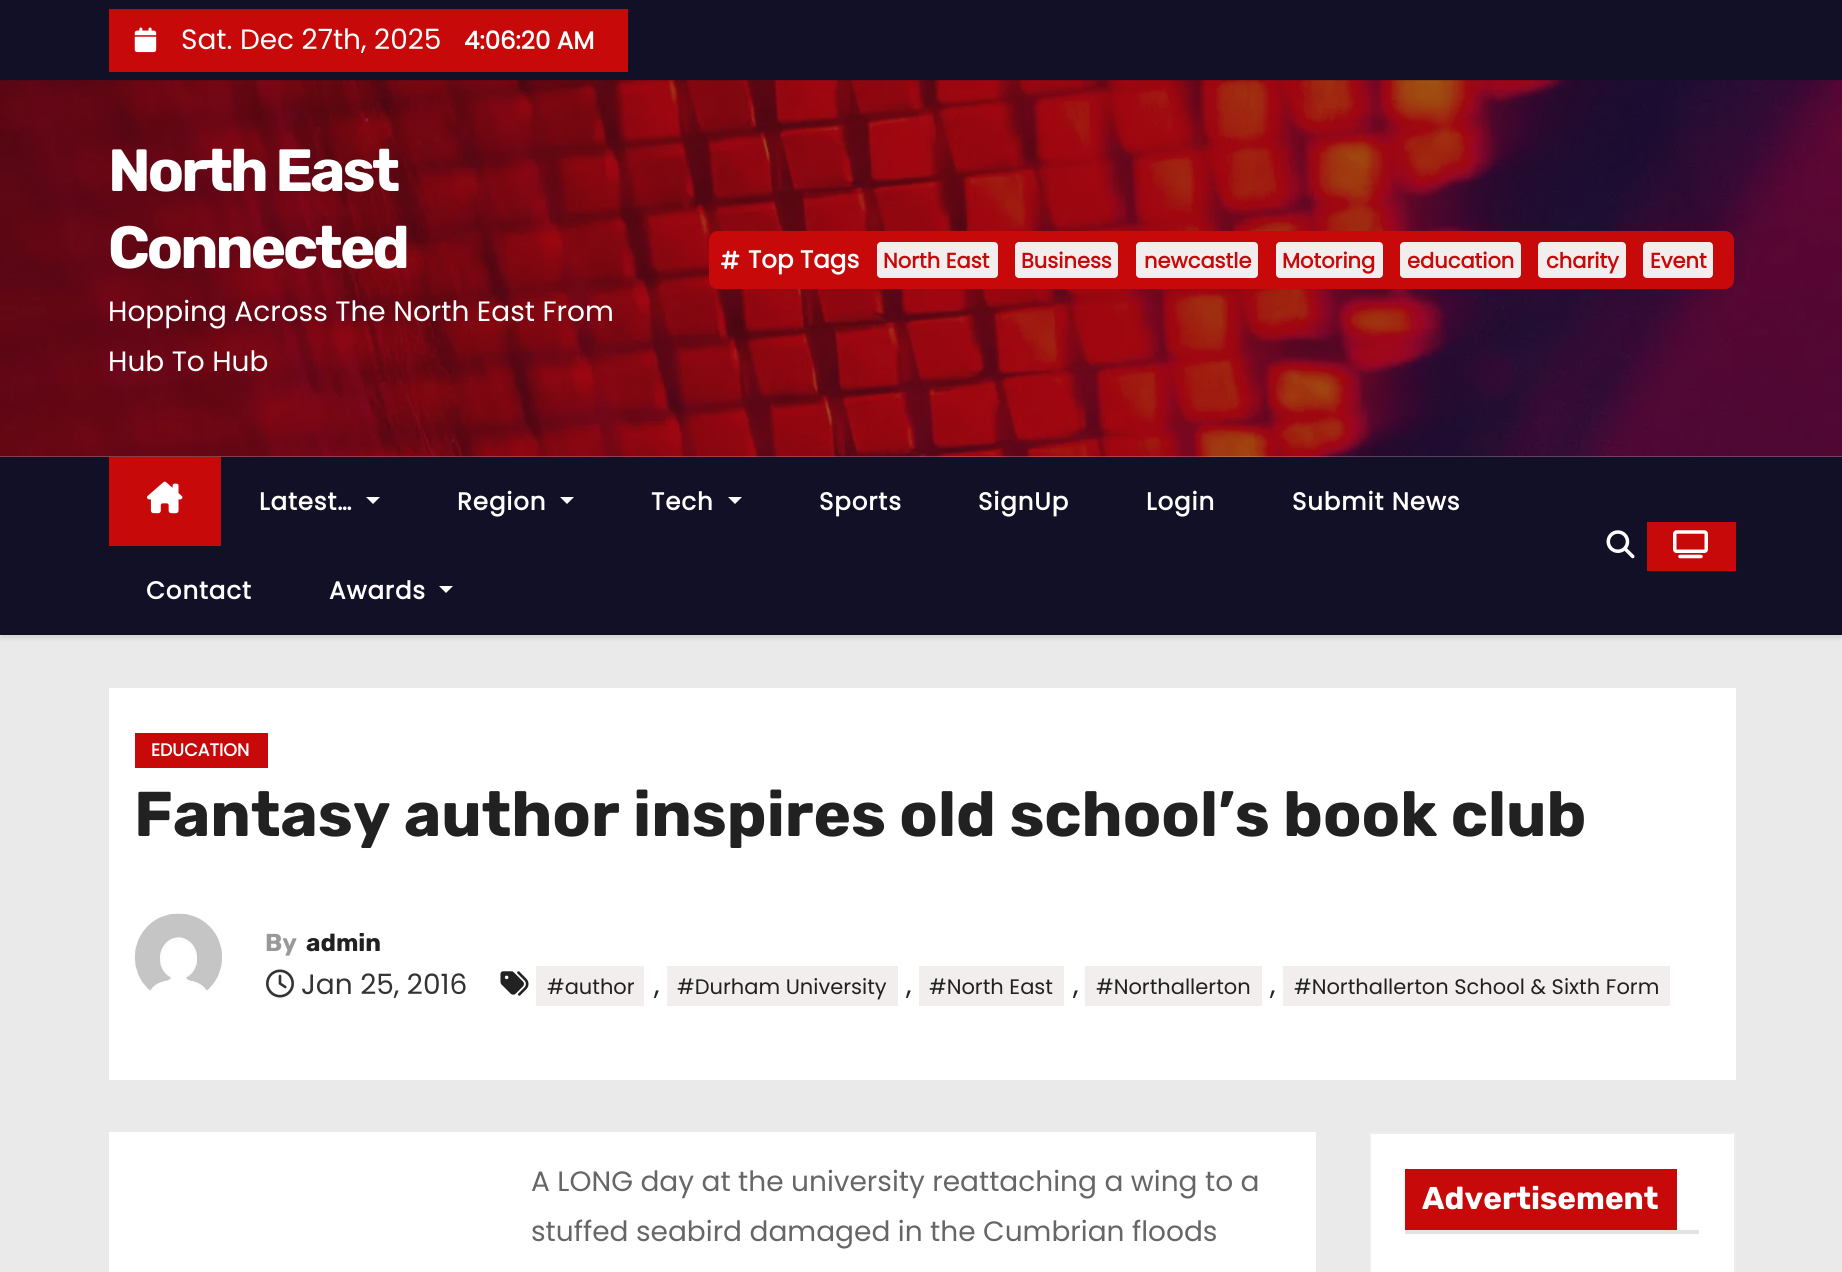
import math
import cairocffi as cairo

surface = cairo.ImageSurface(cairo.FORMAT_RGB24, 1842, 1272)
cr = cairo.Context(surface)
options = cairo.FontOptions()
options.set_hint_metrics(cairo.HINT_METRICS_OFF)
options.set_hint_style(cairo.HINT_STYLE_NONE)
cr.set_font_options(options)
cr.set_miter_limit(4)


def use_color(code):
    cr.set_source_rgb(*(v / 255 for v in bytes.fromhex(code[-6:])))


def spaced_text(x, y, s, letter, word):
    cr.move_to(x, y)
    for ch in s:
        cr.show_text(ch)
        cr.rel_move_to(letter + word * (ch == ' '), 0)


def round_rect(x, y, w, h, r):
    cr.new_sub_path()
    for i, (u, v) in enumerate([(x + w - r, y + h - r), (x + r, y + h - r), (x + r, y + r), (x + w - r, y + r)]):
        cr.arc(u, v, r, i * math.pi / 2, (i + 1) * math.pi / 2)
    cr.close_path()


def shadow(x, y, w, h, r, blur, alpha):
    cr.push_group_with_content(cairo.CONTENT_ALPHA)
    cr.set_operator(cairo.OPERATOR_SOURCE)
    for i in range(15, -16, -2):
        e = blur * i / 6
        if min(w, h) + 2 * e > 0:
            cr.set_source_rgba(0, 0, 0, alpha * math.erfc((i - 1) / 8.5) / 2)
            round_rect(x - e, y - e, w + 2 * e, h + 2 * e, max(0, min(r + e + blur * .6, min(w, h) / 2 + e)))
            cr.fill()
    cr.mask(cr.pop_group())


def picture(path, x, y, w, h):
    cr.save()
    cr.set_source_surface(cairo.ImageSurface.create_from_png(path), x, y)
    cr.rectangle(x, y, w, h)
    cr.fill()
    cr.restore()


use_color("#eaeaea")
cr.paint()
use_color("#121026")
cr.rectangle(0, 0, 1842, 81)
cr.fill()
use_color("#c70909")
cr.rectangle(109, 9, 519, 63)
cr.fill()
picture("img1.png", 134, 27, 23, 26)
cr.select_font_face("Poppins")
cr.set_font_size(28)
use_color("#ffffff")
cr.move_to(181, 49)
cr.show_text("Sat. Dec 27th, 2025")
cr.select_font_face("Poppins", cairo.FONT_SLANT_NORMAL, cairo.FONT_WEIGHT_BOLD)
cr.set_font_size(24.5)
cr.move_to(464, 49)
cr.show_text("4:06:20 AM")
picture("img2.png", 0, 80, 1842, 377)
cr.select_font_face("Rubik", cairo.FONT_SLANT_NORMAL, cairo.FONT_WEIGHT_BOLD)
cr.set_font_size(59.5)
spaced_text(108, 191, "North East", -3, 0)
spaced_text(108, 268, "Connected", -3, 0)
cr.select_font_face("Poppins")
cr.set_font_size(28)
cr.move_to(108, 321)
cr.show_text("Hopping Across The North East From")
cr.move_to(108, 371)
cr.show_text("Hub To Hub")
use_color("#c70909")
round_rect(709, 231, 1025, 58, 9)
cr.fill()
picture("img3.png", 721, 250, 19, 20)
cr.select_font_face("Poppins", cairo.FONT_SLANT_NORMAL, cairo.FONT_WEIGHT_BOLD)
cr.set_font_size(24.5)
use_color("#ffffff")
cr.move_to(748, 268)
cr.show_text("Top Tags")
use_color("#f3eeee")
round_rect(877, 242, 121, 36, 4)
cr.fill()
cr.set_font_size(21)
use_color("#c70909")
cr.move_to(883, 268)
cr.show_text("North East")
use_color("#f3eeee")
round_rect(1015, 242, 103, 36, 4)
cr.fill()
use_color("#c70909")
cr.move_to(1021, 268)
cr.show_text("Business")
use_color("#f3eeee")
round_rect(1136, 242, 122, 36, 4)
cr.fill()
use_color("#c70909")
cr.move_to(1144, 268)
cr.show_text("newcastle")
use_color("#f3eeee")
round_rect(1276, 242, 107, 36, 4)
cr.fill()
use_color("#c70909")
cr.move_to(1282, 268)
cr.show_text("Motoring")
use_color("#f3eeee")
round_rect(1400, 242, 121, 36, 4)
cr.fill()
use_color("#c70909")
cr.move_to(1407, 268)
cr.show_text("education")
use_color("#f3eeee")
round_rect(1538, 242, 88, 36, 4)
cr.fill()
use_color("#c70909")
cr.move_to(1546, 268)
cr.show_text("charity")
use_color("#f3eeee")
round_rect(1643, 242, 70, 36, 4)
cr.fill()
use_color("#c70909")
cr.move_to(1650, 268)
cr.show_text("Event")
use_color("#000000")
shadow(0, 460, 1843, 179, 0, 2, 0.08)
use_color("#121026")
cr.rectangle(0, 457, 1842, 178)
cr.fill()
use_color("#c70909")
cr.rectangle(109, 457, 112, 89)
cr.fill()
picture("img4.png", 147, 481, 36, 33)
cr.set_font_size(24.5)
use_color("#ffffff")
spaced_text(259, 510, "Latest…", 0.9, 0)
cr.new_path()
cr.move_to(366, 497)
cr.line_to(380, 497)
cr.line_to(373, 504)
cr.close_path()
cr.fill()
spaced_text(457, 510, "Region", 0.9, 0)
cr.new_path()
cr.move_to(560, 497)
cr.line_to(574, 497)
cr.line_to(567, 504)
cr.close_path()
cr.fill()
spaced_text(651, 510, "Tech", 0.9, 0)
cr.new_path()
cr.move_to(728, 497)
cr.line_to(742, 497)
cr.line_to(735, 504)
cr.close_path()
cr.fill()
spaced_text(819, 510, "Sports", 0.9, 0)
spaced_text(978, 510, "SignUp", 0.9, 0)
spaced_text(1146, 510, "Login", 0.9, 0)
spaced_text(1292, 510, "Submit News", 0.9, 0)
spaced_text(146, 599, "Contact", 0.9, 0)
spaced_text(329, 599, "Awards", 0.9, 0)
cr.new_path()
cr.move_to(439, 586)
cr.line_to(453, 586)
cr.line_to(446, 593)
cr.close_path()
cr.fill()
picture("img5.png", 1606, 530, 29, 29)
use_color("#c70909")
cr.rectangle(1647, 522, 89, 49)
cr.fill()
picture("img6.png", 1673, 530, 35, 29)
use_color("#ffffff")
cr.rectangle(109, 688, 1627, 392)
cr.fill()
use_color("#c70909")
cr.rectangle(135, 733, 133, 35)
cr.fill()
cr.set_font_size(17.5)
use_color("#ffffff")
cr.move_to(151, 756)
cr.show_text("EDUCATION")
cr.select_font_face("Rubik", cairo.FONT_SLANT_NORMAL, cairo.FONT_WEIGHT_BOLD)
cr.set_font_size(63.2)
use_color("#212121")
cr.move_to(134, 836)
cr.show_text("Fantasy author inspires old school’s book club")
picture("img7.png", 134, 913, 88, 78)
cr.set_font_size(24.5)
use_color("#999999")
cr.move_to(265, 951)
cr.show_text("By")
use_color("#212121")
cr.move_to(306, 951)
cr.show_text("admin")
picture("img8.png", 266, 969, 28, 29)
cr.select_font_face("Poppins")
cr.set_font_size(28)
use_color("#333333")
cr.move_to(301, 994)
cr.show_text("Jan 25, 2016")
picture("img9.png", 500, 971, 29, 25)
use_color("#f3eeee")
cr.rectangle(536, 966, 108, 40)
cr.fill()
cr.set_font_size(21)
use_color("#212121")
cr.move_to(547, 994)
cr.show_text("#author")
cr.set_font_size(28)
cr.move_to(654, 994)
cr.show_text(",")
use_color("#f3eeee")
cr.rectangle(667, 966, 231, 40)
cr.fill()
cr.set_font_size(21)
use_color("#212121")
cr.move_to(677, 994)
cr.show_text("#Durham University")
cr.set_font_size(28)
cr.move_to(906, 994)
cr.show_text(",")
use_color("#f3eeee")
cr.rectangle(919, 966, 145, 40)
cr.fill()
cr.set_font_size(21)
use_color("#212121")
cr.move_to(929, 994)
cr.show_text("#North East")
cr.set_font_size(28)
cr.move_to(1073, 994)
cr.show_text(",")
use_color("#f3eeee")
cr.rectangle(1085, 966, 177, 40)
cr.fill()
cr.set_font_size(21)
use_color("#212121")
cr.move_to(1096, 994)
cr.show_text("#Northallerton")
cr.set_font_size(28)
cr.move_to(1270, 994)
cr.show_text(",")
use_color("#f3eeee")
cr.rectangle(1283, 966, 387, 40)
cr.fill()
cr.set_font_size(21)
use_color("#212121")
cr.move_to(1294, 994)
cr.show_text("#Northallerton School & Sixth Form")
use_color("#ffffff")
cr.rectangle(109, 1132, 1207, 140)
cr.fill()
cr.set_font_size(28)
use_color("#666666")
cr.move_to(531, 1191)
cr.show_text("A LONG day at the university reattaching a wing to a")
cr.move_to(531, 1241)
cr.show_text("stuffed seabird damaged in the Cumbrian floods")
use_color("#ffffff")
cr.rectangle(1370, 1133, 365, 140)
cr.fill_preserve()
use_color("#eeeeee")
cr.stroke()
use_color("#e4e4e4")
cr.rectangle(1405, 1230, 294, 4)
cr.fill()
use_color("#c70909")
cr.rectangle(1405, 1169, 272, 61)
cr.fill()
cr.select_font_face("Rubik", cairo.FONT_SLANT_NORMAL, cairo.FONT_WEIGHT_BOLD)
cr.set_font_size(31.5)
use_color("#ffffff")
cr.move_to(1422, 1209)
cr.show_text("Advertisement")
surface.write_to_png("result.png")
